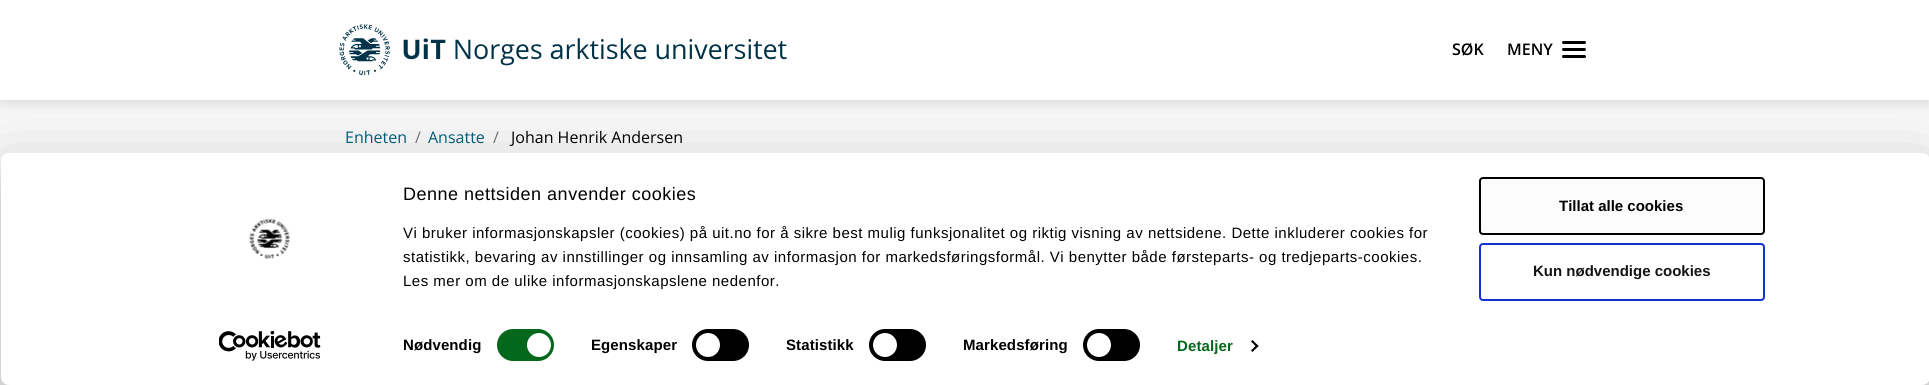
import math
import cairocffi as cairo

surface = cairo.ImageSurface(cairo.FORMAT_RGB24, 1929, 385)
cr = cairo.Context(surface)
options = cairo.FontOptions()
options.set_hint_metrics(cairo.HINT_METRICS_OFF)
options.set_hint_style(cairo.HINT_STYLE_NONE)
cr.set_font_options(options)
cr.set_miter_limit(4)


def use_color(code):
    cr.set_source_rgb(*(v / 255 for v in bytes.fromhex(code[-6:])))


def spaced_text(x, y, s, letter, word):
    cr.move_to(x, y)
    for ch in s:
        cr.show_text(ch)
        cr.rel_move_to(letter + word * (ch == ' '), 0)


def round_rect(x, y, w, h, r):
    cr.new_sub_path()
    for i, (u, v) in enumerate([(x + w - r, y + h - r), (x + r, y + h - r), (x + r, y + r), (x + w - r, y + r)]):
        cr.arc(u, v, r, i * math.pi / 2, (i + 1) * math.pi / 2)
    cr.close_path()


def shadow(x, y, w, h, r, blur, alpha):
    cr.push_group_with_content(cairo.CONTENT_ALPHA)
    cr.set_operator(cairo.OPERATOR_SOURCE)
    for i in range(15, -16, -2):
        e = blur * i / 6
        if min(w, h) + 2 * e > 0:
            cr.set_source_rgba(0, 0, 0, alpha * math.erfc((i - 1) / 8.5) / 2)
            round_rect(x - e, y - e, w + 2 * e, h + 2 * e, max(0, min(r + e + blur * .6, min(w, h) / 2 + e)))
            cr.fill()
    cr.mask(cr.pop_group())


def picture(path, x, y, w, h):
    cr.save()
    cr.set_source_surface(cairo.ImageSurface.create_from_png(path), x, y)
    cr.rectangle(x, y, w, h)
    cr.fill()
    cr.restore()


use_color("#f7f7f7")
cr.paint()
use_color("#000000")
shadow(0, 5, 1929, 100, 0, 5, 0.1)
use_color("#ffffff")
cr.rectangle(0, 0, 1929, 100)
cr.fill()
picture("img1.png", 339, 24, 448, 52)
cr.select_font_face("Open Sans SemiBold")
cr.set_font_size(16)
use_color("#000000")
cr.move_to(1452, 55)
cr.show_text("SØK")
round_rect(1562, 41, 24, 3, 1.5)
cr.fill()
cr.move_to(1507, 55)
cr.show_text("MENY")
round_rect(1562, 48, 24, 3, 1.5)
cr.fill()
round_rect(1562, 55, 24, 3, 1.5)
cr.fill()
cr.select_font_face("Open Sans")
use_color("#005e7a")
cr.move_to(345, 143)
cr.show_text("Enheten")
use_color("#6c757d")
cr.move_to(415, 143)
cr.show_text("/")
use_color("#005e7a")
cr.move_to(428, 143)
cr.show_text("Ansatte")
use_color("#6c757d")
cr.move_to(493, 143)
cr.show_text("/")
use_color("#000000")
cr.move_to(511, 143)
cr.show_text("Johan Henrik Andersen")
use_color("#000000")
shadow(1, 183, 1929, 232, 8, 35, 0.3)
use_color("#ffffff")
round_rect(1, 153, 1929, 232, 8)
cr.fill()
picture("img2.png", 249, 218, 41, 41)
picture("img3.png", 219, 331, 102, 30)
cr.select_font_face("Liberation Sans")
cr.set_font_size(18)
use_color("#000000")
spaced_text(403, 200, "Denne nettsiden anvender cookies", 0.5, 0)
cr.set_font_size(15)
spaced_text(403, 238, "Vi bruker informasjonskapsler (cookies) på uit.no for å sikre best mulig funksjonalitet og riktig visning av nettsidene. Dette inkluderer cookies for", 0.5, 0)
spaced_text(403, 262, "statistikk, bevaring av innstillinger og innsamling av informasjon for markedsføringsformål. Vi benytter både førsteparts- og tredjeparts-cookies.", 0.5, 0)
spaced_text(403, 286, "Les mer om de ulike informasjonskapslene nedenfor.", 0.5, 0)
cr.select_font_face("Liberation Sans", cairo.FONT_SLANT_NORMAL, cairo.FONT_WEIGHT_BOLD)
spaced_text(403, 350, "Nødvendig", 0.1, 0)
use_color("#03681b")
round_rect(497, 329, 57, 32, 16)
cr.fill()
use_color("#ffffff")
cr.arc(539, 345, 12, 0, 2 * math.pi)
cr.fill()
use_color("#000000")
spaced_text(591, 350, "Egenskaper", 0.1, 0)
round_rect(692, 329, 57, 32, 16)
cr.fill()
use_color("#ffffff")
cr.arc(708, 345, 12, 0, 2 * math.pi)
cr.fill()
use_color("#000000")
spaced_text(786, 350, "Statistikk", 0.1, 0)
round_rect(869, 329, 57, 32, 16)
cr.fill()
use_color("#ffffff")
cr.arc(885, 345, 12, 0, 2 * math.pi)
cr.fill()
use_color("#000000")
spaced_text(963, 350, "Markedsføring", 0.1, 0)
round_rect(1083, 329, 57, 32, 16)
cr.fill()
use_color("#ffffff")
cr.arc(1099, 345, 12, 0, 2 * math.pi)
cr.fill()
use_color("#03681b")
spaced_text(1177, 351, "Detaljer", 0.1, 0)
use_color("#000000")
cr.new_path()
cr.move_to(1252.5, 340)
cr.line_to(1258.5, 346)
cr.line_to(1257, 347.5)
cr.line_to(1251, 341.5)
cr.close_path()
cr.fill()
cr.new_path()
cr.move_to(1257, 344.5)
cr.line_to(1258.5, 346)
cr.line_to(1252.5, 352)
cr.line_to(1251, 350.5)
cr.close_path()
cr.fill()
use_color("#fcfcfc")
round_rect(1480, 178, 284, 56, 3)
cr.fill_preserve()
use_color("#000000")
cr.stroke()
cr.move_to(1559, 211)
cr.show_text("Tillat alle cookies")
round_rect(1480, 244, 284, 56, 3)
use_color("#1032cf")
cr.stroke()
use_color("#141414")
cr.move_to(1533, 276)
cr.show_text("Kun nødvendige cookies")
surface.write_to_png("result.png")
